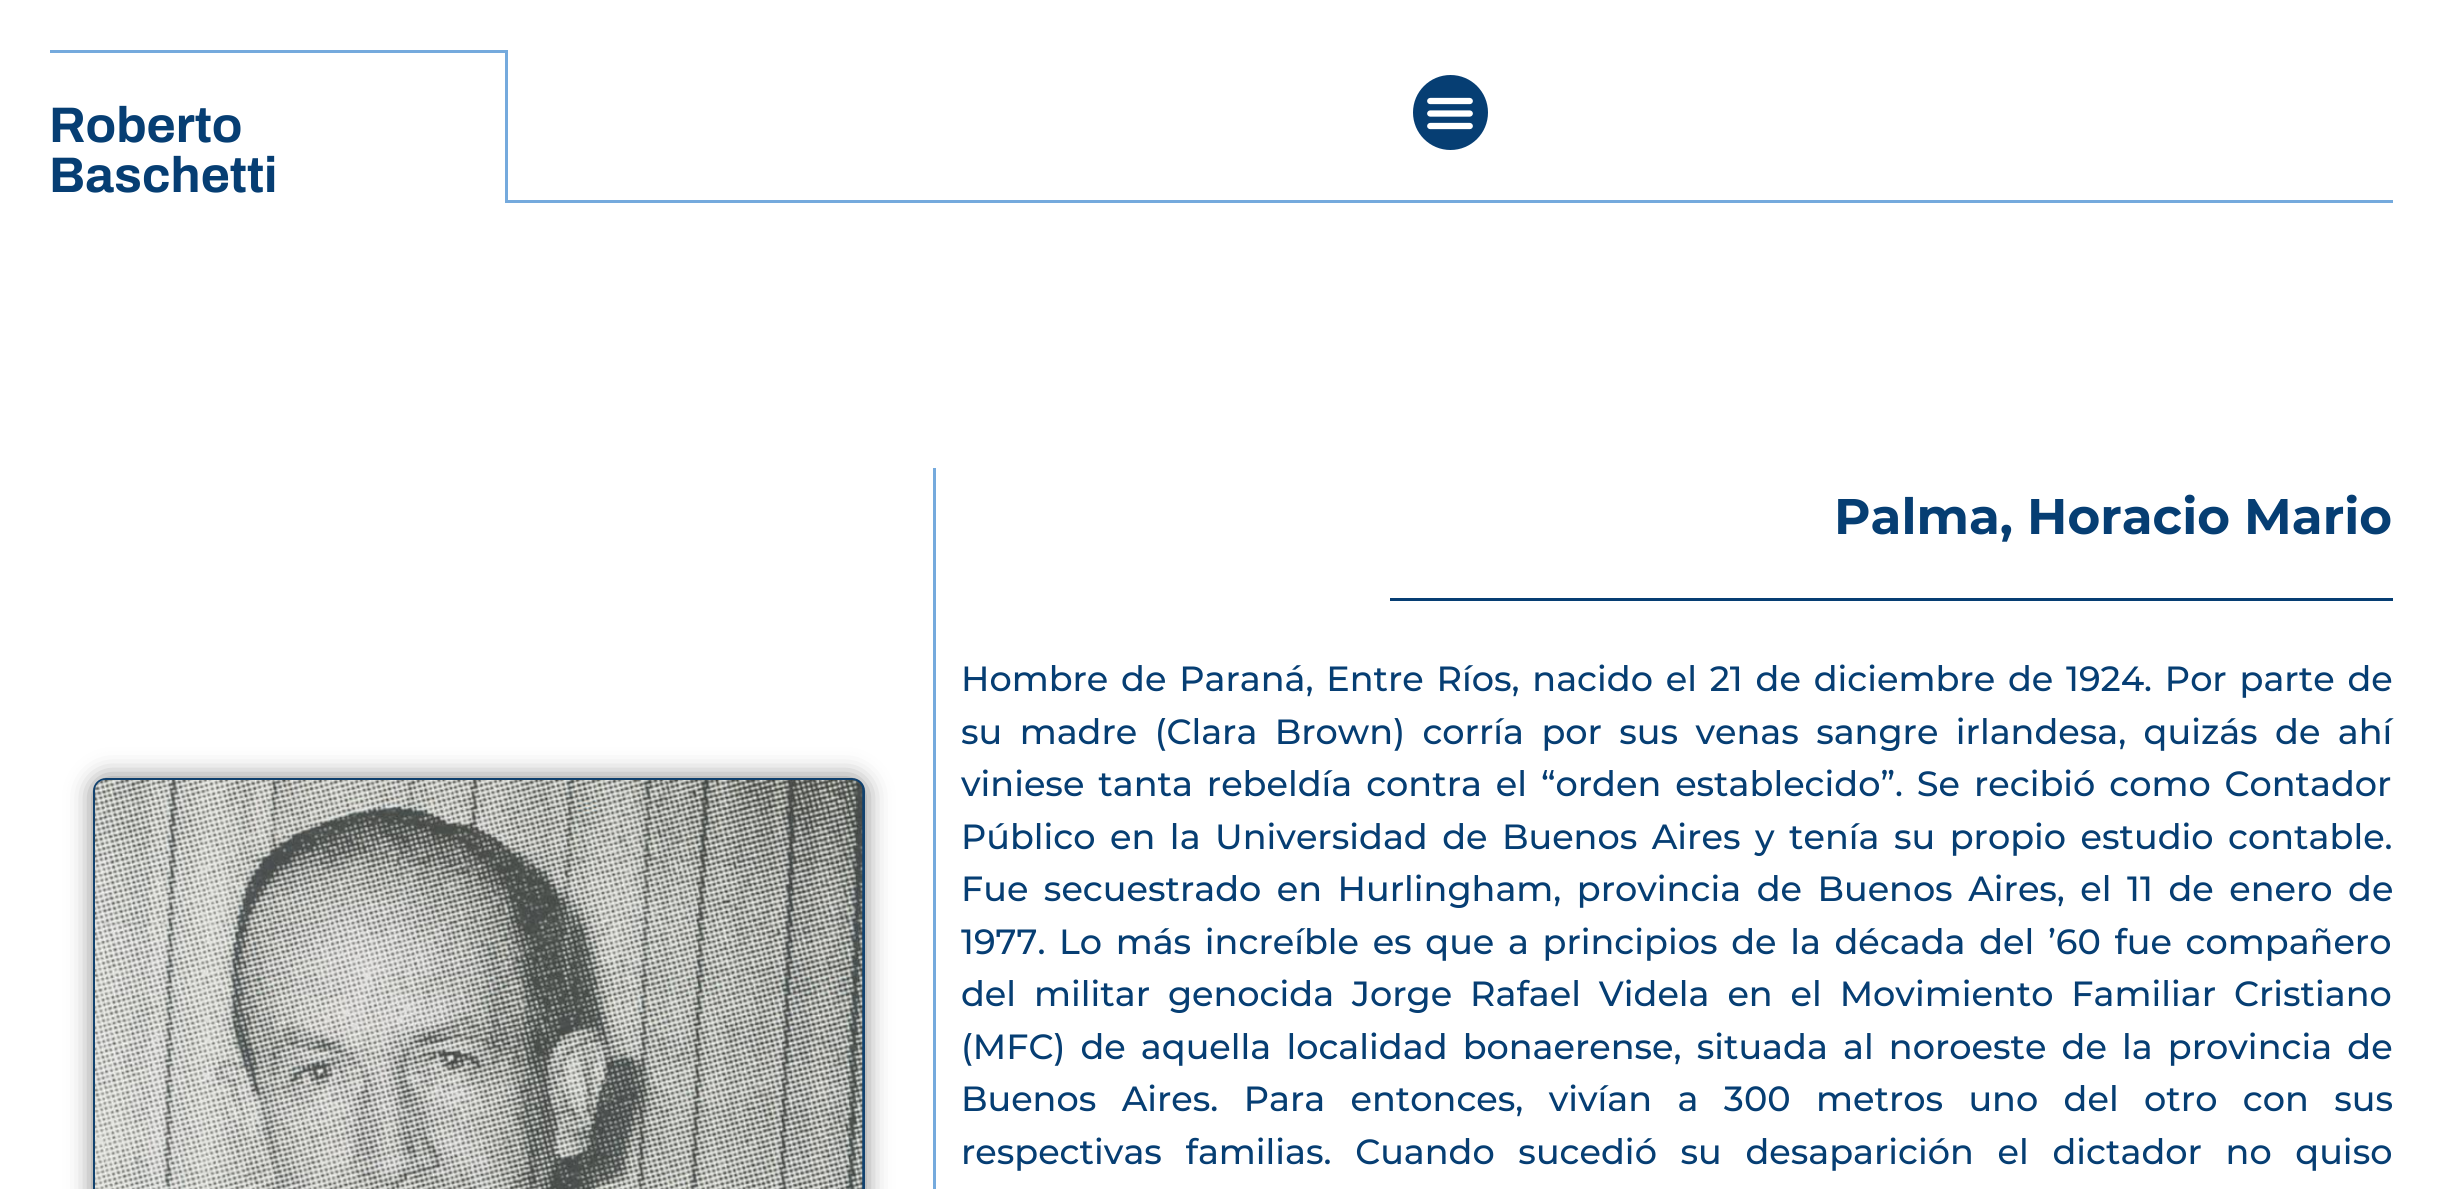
import math
import cairocffi as cairo

surface = cairo.ImageSurface(cairo.FORMAT_RGB24, 2442, 1189)
cr = cairo.Context(surface)
options = cairo.FontOptions()
options.set_hint_metrics(cairo.HINT_METRICS_OFF)
options.set_hint_style(cairo.HINT_STYLE_NONE)
cr.set_font_options(options)
cr.set_miter_limit(4)


def use_color(code):
    cr.set_source_rgb(*(v / 255 for v in bytes.fromhex(code[-6:])))


def spaced_text(x, y, s, letter, word):
    cr.move_to(x, y)
    for ch in s:
        cr.show_text(ch)
        cr.rel_move_to(letter + word * (ch == ' '), 0)


def round_rect(x, y, w, h, r):
    cr.new_sub_path()
    for i, (u, v) in enumerate([(x + w - r, y + h - r), (x + r, y + h - r), (x + r, y + r), (x + w - r, y + r)]):
        cr.arc(u, v, r, i * math.pi / 2, (i + 1) * math.pi / 2)
    cr.close_path()


def shadow(x, y, w, h, r, blur, alpha):
    cr.push_group_with_content(cairo.CONTENT_ALPHA)
    cr.set_operator(cairo.OPERATOR_SOURCE)
    for i in range(15, -16, -2):
        e = blur * i / 6
        if min(w, h) + 2 * e > 0:
            cr.set_source_rgba(0, 0, 0, alpha * math.erfc((i - 1) / 8.5) / 2)
            round_rect(x - e, y - e, w + 2 * e, h + 2 * e, max(0, min(r + e + blur * .6, min(w, h) / 2 + e)))
            cr.fill()
    cr.mask(cr.pop_group())


def picture(path, x, y, w, h):
    cr.save()
    cr.set_source_surface(cairo.ImageSurface.create_from_png(path), x, y)
    cr.rectangle(x, y, w, h)
    cr.fill()
    cr.restore()


use_color("#ffffff")
cr.paint()
use_color("#75aadd")
cr.rectangle(50, 50, 458, 3)
cr.fill()
cr.rectangle(505, 50, 3, 153)
cr.fill()
cr.select_font_face("Archivo", cairo.FONT_SLANT_NORMAL, cairo.FONT_WEIGHT_BOLD)
cr.set_font_size(50)
use_color("#063e73")
cr.move_to(49, 142)
cr.show_text("Roberto")
cr.move_to(49, 192)
cr.show_text("Baschetti")
use_color("#75aadd")
cr.rectangle(508, 200, 1885, 3)
cr.fill()
use_color("#063e73")
cr.arc(1450.5, 112.5, 37.5, 0, 2 * math.pi)
cr.fill()
picture("img1.png", 1427, 97, 46, 33)
use_color("#75aadd")
cr.rectangle(933, 468, 3, 721)
cr.fill()
use_color("#000000")
shadow(93, 778, 772, 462, 13, 12.5, 0.5)
round_rect(94.5, 779.5, 769, 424, 11.5)
use_color("#11416e")
cr.set_line_width(3)
cr.stroke()
picture("img2.png", 95, 780, 768, 409)
cr.select_font_face("Montserrat", cairo.FONT_SLANT_NORMAL, cairo.FONT_WEIGHT_BOLD)
use_color("#063e73")
cr.move_to(1834, 534)
cr.show_text("Palma, Horacio Mario")
cr.rectangle(1390, 598, 1003, 3)
cr.fill()
cr.select_font_face("Montserrat Medium")
cr.set_font_size(35)
spaced_text(961, 691, "Hombre de Paraná, Entre Ríos, nacido el 21 de diciembre de 1924. Por parte de", 0, 3.4)
spaced_text(961, 744, "su madre (Clara Brown) corría por sus venas sangre irlandesa, quizás de ahí", 0, 8)
spaced_text(961, 796, "viniese tanta rebeldía contra el “orden establecido”. Se recibió como Contador", 0, 4.5)
spaced_text(961, 849, "Público en la Universidad de Buenos Aires y tenía su propio estudio contable.", 0, 5.1)
spaced_text(961, 901, "Fue secuestrado en Hurlingham, provincia de Buenos Aires, el 11 de enero de", 0, 6.1)
spaced_text(961, 954, "1977. Lo más increíble es que a principios de la década del ’60 fue compañero", 0, 4.25)
spaced_text(961, 1006, "del militar genocida Jorge Rafael Videla en el Movimiento Familiar Cristiano", 0, 8.5)
spaced_text(961, 1059, "(MFC) de aquella localidad bonaerense, situada al noroeste de la provincia de", 0, 5.75)
spaced_text(961, 1111, "Buenos Aires. Para entonces, vivían a 300 metros uno del otro con sus", 0, 16)
spaced_text(961, 1164, "respectivas familias. Cuando sucedió su desaparición el dictador no quiso", 0, 14.25)
surface.write_to_png("result.png")
